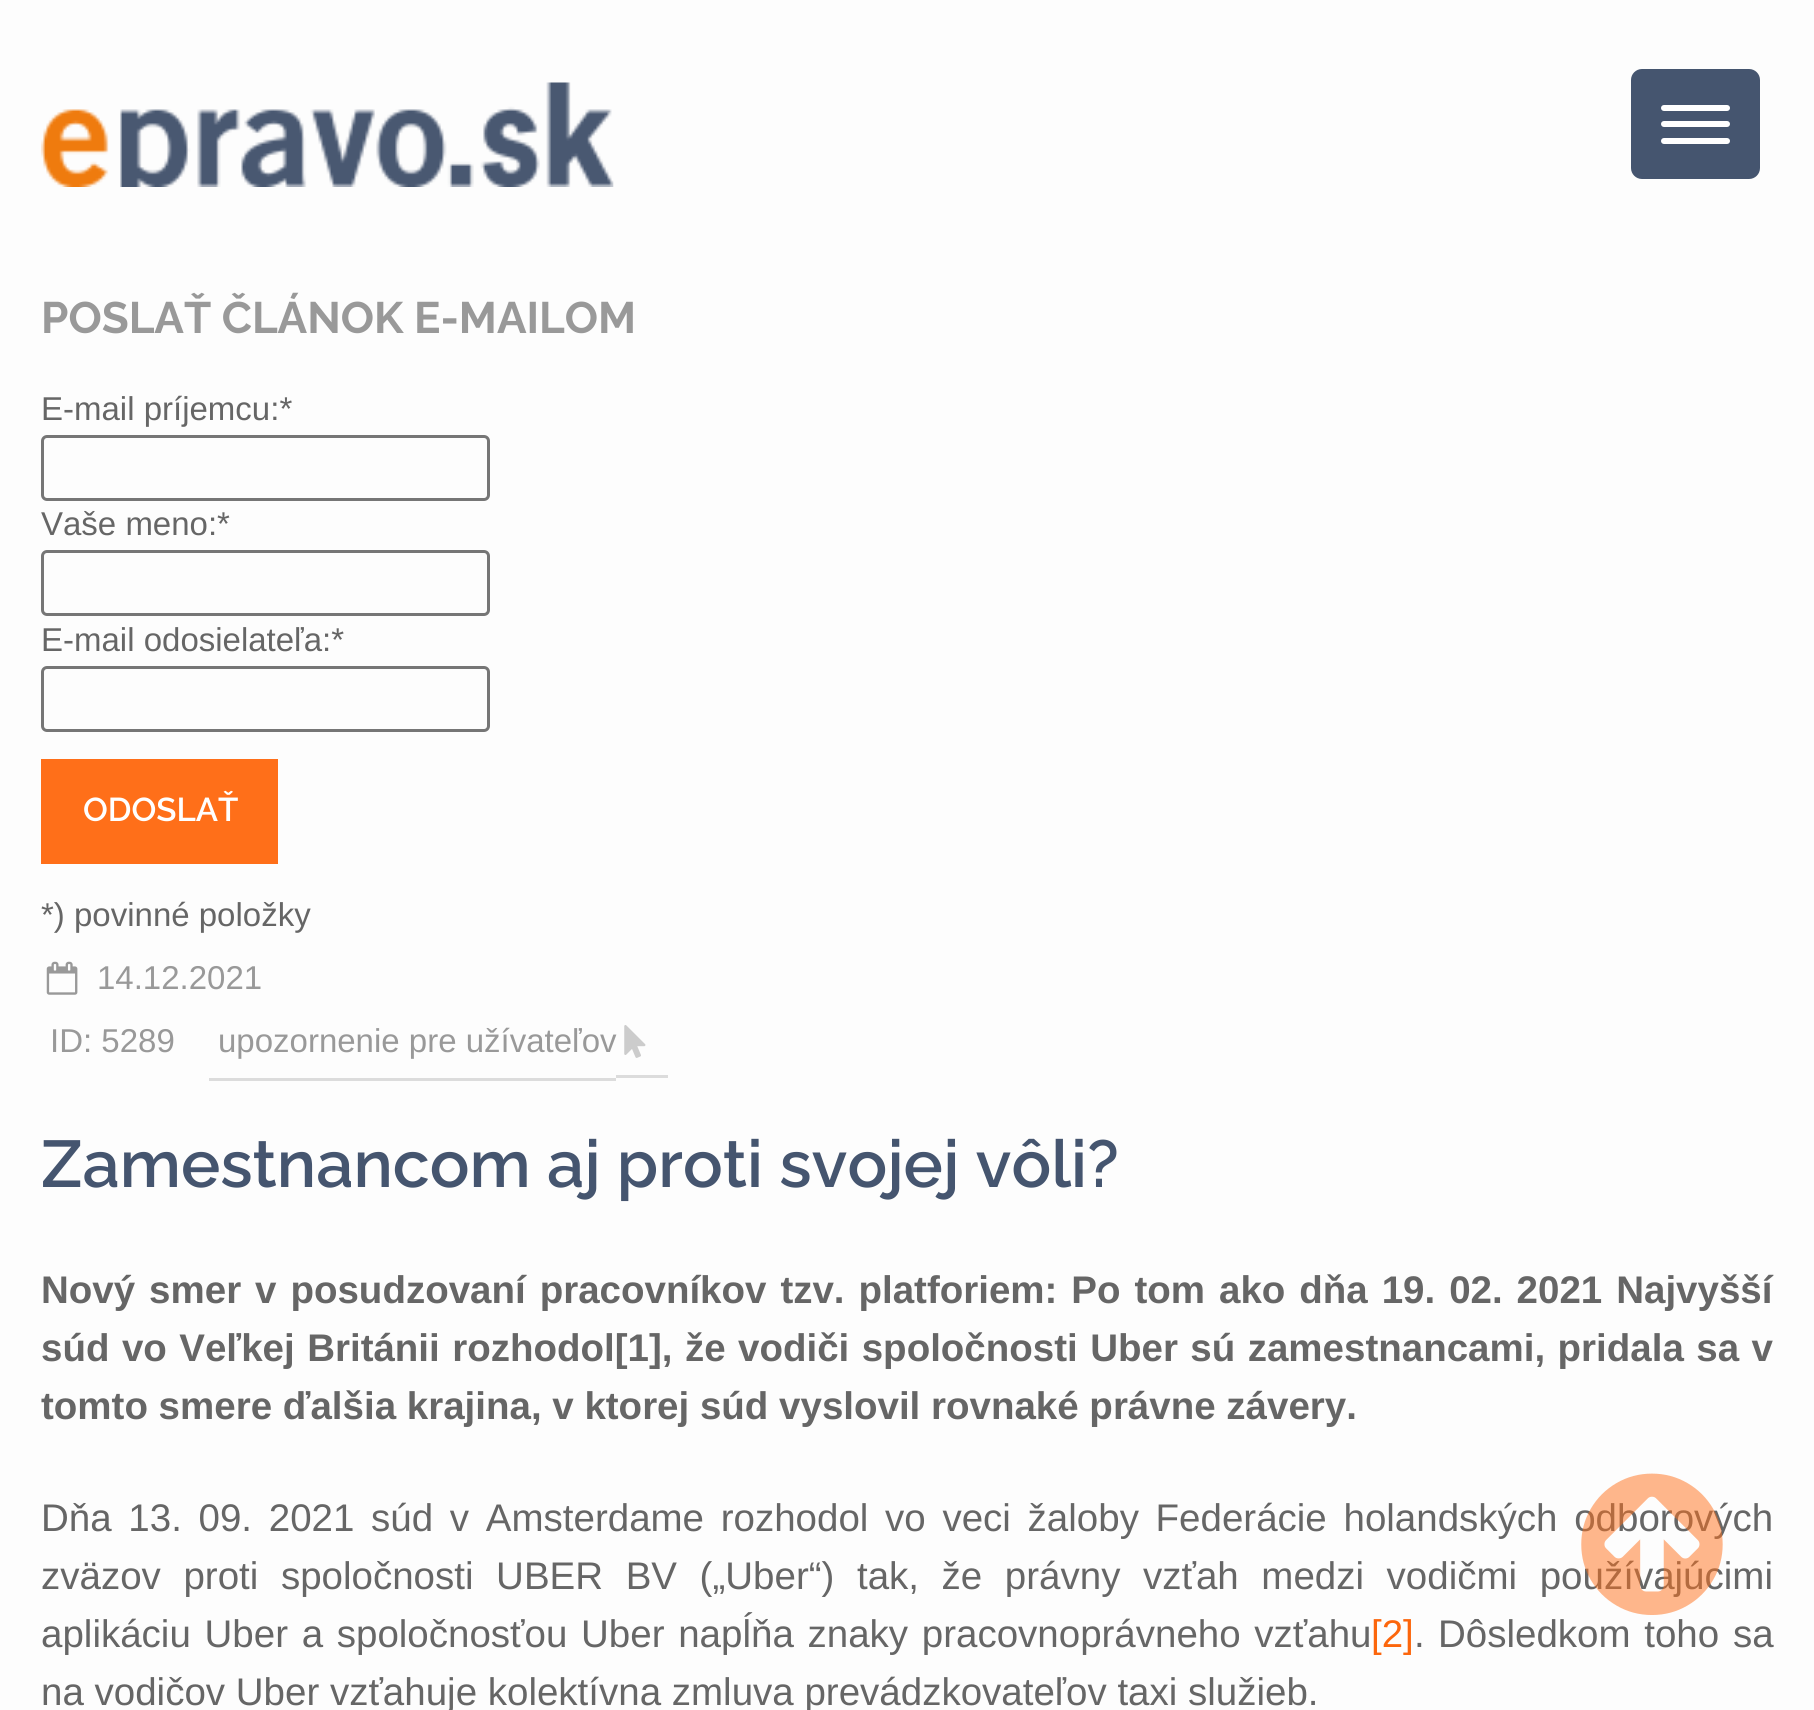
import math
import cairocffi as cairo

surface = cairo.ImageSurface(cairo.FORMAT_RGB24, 1814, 1710)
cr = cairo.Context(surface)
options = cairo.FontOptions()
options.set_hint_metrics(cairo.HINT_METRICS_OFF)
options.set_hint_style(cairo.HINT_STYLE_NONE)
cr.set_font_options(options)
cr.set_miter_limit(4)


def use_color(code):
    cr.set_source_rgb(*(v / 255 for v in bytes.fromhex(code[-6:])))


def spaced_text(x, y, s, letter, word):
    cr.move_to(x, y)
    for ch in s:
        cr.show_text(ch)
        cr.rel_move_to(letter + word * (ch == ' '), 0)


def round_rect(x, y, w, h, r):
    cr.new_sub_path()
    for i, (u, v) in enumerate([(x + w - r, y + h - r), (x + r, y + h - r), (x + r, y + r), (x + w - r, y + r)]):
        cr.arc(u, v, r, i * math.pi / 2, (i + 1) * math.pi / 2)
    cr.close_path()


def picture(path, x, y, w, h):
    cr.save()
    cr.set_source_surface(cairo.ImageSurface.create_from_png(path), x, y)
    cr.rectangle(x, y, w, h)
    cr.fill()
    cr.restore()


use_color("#fdfdfd")
cr.paint()
picture("img1.png", 41, 82, 573, 105)
use_color("#45556f")
round_rect(1631, 69, 129, 110, 11)
cr.fill()
use_color("#ffffff")
round_rect(1661, 105, 69, 6, 3)
cr.fill()
round_rect(1661, 121, 69, 6, 3)
cr.fill()
round_rect(1661, 138, 69, 6, 3)
cr.fill()
cr.select_font_face("Raleway", cairo.FONT_SLANT_NORMAL, cairo.FONT_WEIGHT_BOLD)
cr.set_font_size(44)
use_color("#999999")
cr.move_to(41, 333)
cr.show_text("POSLAŤ ČLÁNOK E-MAILOM")
cr.select_font_face("Liberation Sans")
cr.set_font_size(33)
use_color("#666666")
cr.move_to(41, 420)
cr.show_text("E-mail príjemcu:*")
round_rect(42.5, 436.5, 446, 63, 4.5)
use_color("#767676")
cr.set_line_width(3)
cr.stroke()
use_color("#666666")
cr.move_to(41, 535)
cr.show_text("Vaše meno:*")
round_rect(42.5, 551.5, 446, 63, 4.5)
use_color("#767676")
cr.stroke()
use_color("#666666")
cr.move_to(41, 651)
cr.show_text("E-mail odosielateľa:*")
round_rect(42.5, 667.5, 446, 63, 4.5)
use_color("#767676")
cr.stroke()
use_color("#ff6f19")
cr.rectangle(41, 759, 237, 105)
cr.fill()
cr.select_font_face("Raleway SemiBold")
use_color("#ffffff")
cr.move_to(83, 821)
cr.show_text("ODOSLAŤ")
cr.select_font_face("Liberation Sans")
use_color("#666666")
cr.move_to(41, 926)
cr.show_text("*) povinné položky")
picture("img2.png", 46, 961, 32, 34)
use_color("#999999")
cr.move_to(97, 989)
cr.show_text("14.12.2021")
cr.move_to(50, 1052)
cr.show_text("ID: 5289")
use_color("#dcdcdc")
cr.rectangle(209, 1078, 407, 3)
cr.fill()
cr.rectangle(616, 1075, 52, 3)
cr.fill()
use_color("#999999")
cr.move_to(218, 1052)
cr.show_text("upozornenie pre užívateľov")
picture("img3.png", 624, 1025, 22, 33)
cr.select_font_face("Raleway SemiBold")
cr.set_font_size(66)
use_color("#45556f")
cr.move_to(41, 1187)
cr.show_text("Zamestnancom aj proti svojej vôli?")
cr.select_font_face("Liberation Sans", cairo.FONT_SLANT_NORMAL, cairo.FONT_WEIGHT_BOLD)
cr.set_font_size(38.5)
use_color("#666666")
spaced_text(41, 1303, "Nový smer v posudzovaní pracovníkov tzv. platforiem: Po tom ako dňa 19. 02. 2021 Najvyšší", 0, 3.25)
spaced_text(41, 1361, "súd vo Veľkej Británii rozhodol[1], že vodiči spoločnosti Uber sú zamestnancami, pridala sa v", 0, 1.75)
cr.move_to(41, 1419)
cr.show_text("tomto smere ďalšia krajina, v ktorej súd vyslovil rovnaké právne závery.")
cr.select_font_face("Liberation Sans")
spaced_text(41, 1531, "Dňa 13. 09. 2021 súd v Amsterdame rozhodol vo veci žaloby Federácie holandských odborových", 0, 6)
spaced_text(41, 1589, "zväzov proti spoločnosti UBER BV („Uber“) tak, že právny vzťah medzi vodičmi používajúcimi", 0, 11.9)
spaced_text(41, 1647, "aplikáciu Uber a spoločnosťou Uber napĺňa znaky pracovnoprávneho vzťahu", 0, 3)
use_color("#fc660c")
cr.move_to(1371, 1647)
cr.show_text("[2]")
use_color("#666666")
cr.move_to(1414, 1647)
cr.show_text(".")
spaced_text(1438, 1647, "Dôsledkom toho sa", 0, 3)
cr.move_to(41, 1705)
cr.show_text("na vodičov Uber vzťahuje kolektívna zmluva prevádzkovateľov taxi služieb.")
picture("img4.png", 1581, 1473, 142, 142)
surface.write_to_png("result.png")
